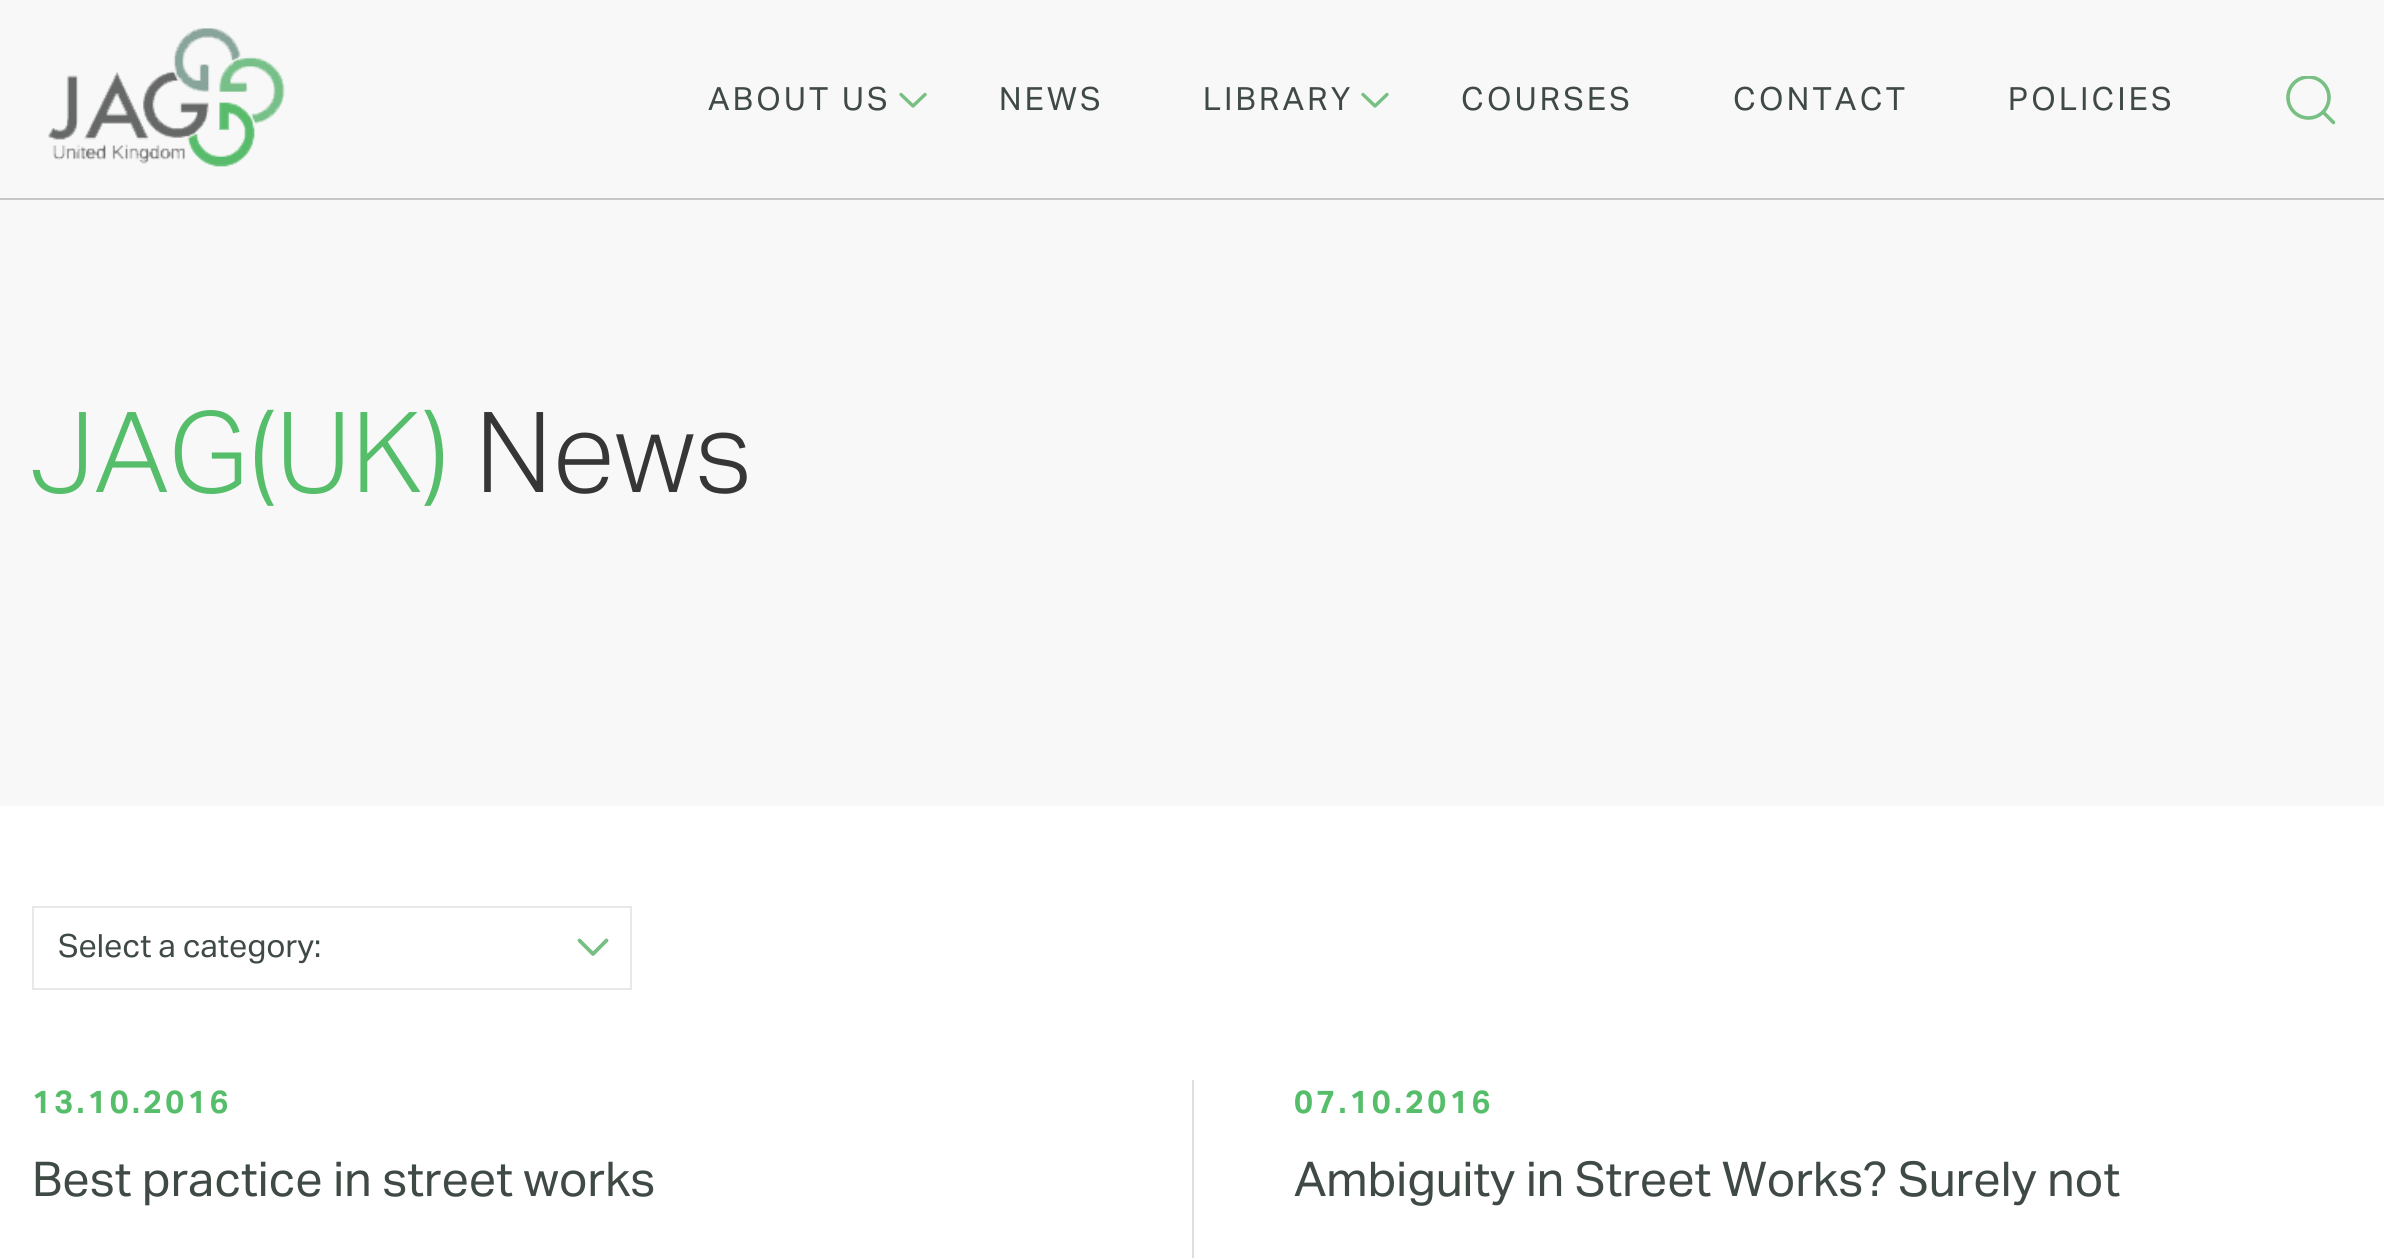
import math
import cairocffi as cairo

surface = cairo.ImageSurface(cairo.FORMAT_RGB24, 2384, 1258)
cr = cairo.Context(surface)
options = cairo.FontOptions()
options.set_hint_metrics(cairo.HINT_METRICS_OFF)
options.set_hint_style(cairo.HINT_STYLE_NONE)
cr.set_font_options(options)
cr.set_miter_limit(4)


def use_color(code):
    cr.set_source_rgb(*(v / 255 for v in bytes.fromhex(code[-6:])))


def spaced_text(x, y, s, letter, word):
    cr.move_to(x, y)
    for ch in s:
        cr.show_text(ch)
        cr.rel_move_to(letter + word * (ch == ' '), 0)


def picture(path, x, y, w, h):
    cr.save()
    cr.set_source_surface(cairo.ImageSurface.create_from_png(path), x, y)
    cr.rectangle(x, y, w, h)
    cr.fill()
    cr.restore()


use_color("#ffffff")
cr.paint()
use_color("#f8f8f8")
cr.rectangle(0, 0, 2384, 198)
cr.fill()
use_color("#c6c6c6")
cr.rectangle(0, 198, 2384, 2)
cr.fill()
picture("img1.png", 48, 28, 237, 139)
cr.select_font_face("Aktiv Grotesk")
cr.set_font_size(32)
use_color("#404a45")
spaced_text(708, 110, "ABOUT US", 3.25, 0)
cr.new_path()
cr.move_to(925, 94.5)
cr.line_to(913, 106)
cr.line_to(901, 94.5)
use_color("#77bf83")
cr.set_line_width(3.4)
cr.set_line_cap(cairo.LINE_CAP_ROUND)
cr.set_line_join(cairo.LINE_JOIN_ROUND)
cr.stroke()
use_color("#404a45")
spaced_text(999, 110, "NEWS", 3.25, 0)
spaced_text(1203, 110, "LIBRARY", 3.25, 0)
cr.new_path()
cr.move_to(1387, 94.5)
cr.line_to(1375, 106)
cr.line_to(1363, 94.5)
use_color("#77bf83")
cr.stroke()
use_color("#404a45")
spaced_text(1461, 110, "COURSES", 3.25, 0)
spaced_text(1733, 110, "CONTACT", 3.25, 0)
spaced_text(2008, 110, "POLICIES", 3.25, 0)
cr.save()
cr.rectangle(2286, 76, 50, 48)
cr.clip()
cr.arc(2308.5, 97.5, 20.5, 0, 2 * math.pi)
use_color("#77bf83")
cr.set_line_width(3.6)
cr.set_line_cap(cairo.LINE_CAP_BUTT)
cr.set_line_join(cairo.LINE_JOIN_MITER)
cr.stroke()
cr.restore()
cr.new_path()
cr.move_to(2333.5, 122.5)
cr.line_to(2324, 113)
use_color("#77bf83")
cr.set_line_width(3.6)
cr.stroke()
use_color("#f8f8f8")
cr.rectangle(0, 200, 2384, 606)
cr.fill()
cr.select_font_face("Aktiv Grotesk Light")
cr.set_font_size(112)
use_color("#56be6a")
cr.move_to(30, 492)
cr.show_text("JAG(UK)")
use_color("#363636")
cr.move_to(475, 492)
cr.show_text("News")
cr.new_path()
cr.move_to(606.5, 940.5)
cr.line_to(593, 954)
cr.line_to(579.5, 940.5)
use_color("#77bf83")
cr.set_line_width(3.8)
cr.stroke()
cr.rectangle(33, 907, 598, 82)
use_color("#e8e8e8")
cr.set_line_width(2)
cr.set_line_cap(cairo.LINE_CAP_BUTT)
cr.set_line_join(cairo.LINE_JOIN_MITER)
cr.stroke()
cr.select_font_face("Aktiv Grotesk")
cr.set_font_size(32)
use_color("#404a45")
cr.move_to(58, 957)
cr.show_text("Select a category:")
cr.select_font_face("Aktiv Grotesk", cairo.FONT_SLANT_NORMAL, cairo.FONT_WEIGHT_BOLD)
use_color("#56be6a")
spaced_text(32, 1113, "13.10.2016", 3.25, 0)
cr.select_font_face("Aktiv Grotesk")
cr.set_font_size(48)
use_color("#404a45")
cr.move_to(32, 1196)
cr.show_text("Best practice in street works")
use_color("#dedede")
cr.rectangle(1192, 1080, 2, 178)
cr.fill()
cr.select_font_face("Aktiv Grotesk", cairo.FONT_SLANT_NORMAL, cairo.FONT_WEIGHT_BOLD)
cr.set_font_size(32)
use_color("#56be6a")
spaced_text(1294, 1113, "07.10.2016", 3.25, 0)
cr.select_font_face("Aktiv Grotesk")
cr.set_font_size(48)
use_color("#404a45")
cr.move_to(1294, 1196)
cr.show_text("Ambiguity in Street Works? Surely not")
surface.write_to_png("result.png")
